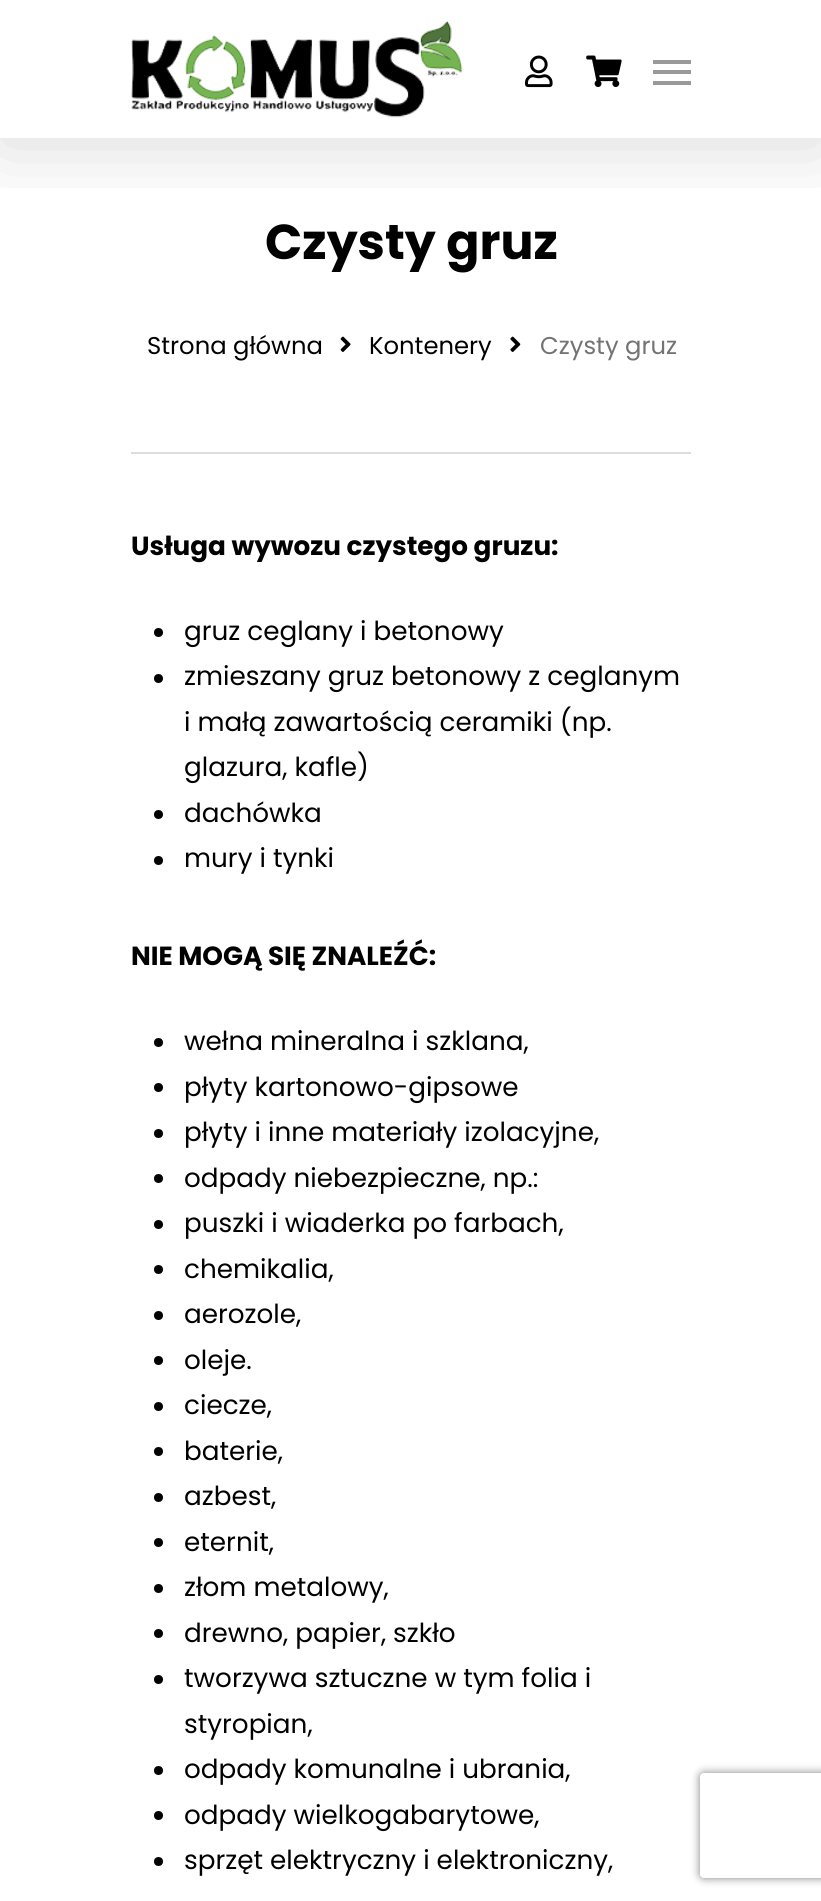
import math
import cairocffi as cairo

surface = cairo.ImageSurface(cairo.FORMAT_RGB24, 821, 1901)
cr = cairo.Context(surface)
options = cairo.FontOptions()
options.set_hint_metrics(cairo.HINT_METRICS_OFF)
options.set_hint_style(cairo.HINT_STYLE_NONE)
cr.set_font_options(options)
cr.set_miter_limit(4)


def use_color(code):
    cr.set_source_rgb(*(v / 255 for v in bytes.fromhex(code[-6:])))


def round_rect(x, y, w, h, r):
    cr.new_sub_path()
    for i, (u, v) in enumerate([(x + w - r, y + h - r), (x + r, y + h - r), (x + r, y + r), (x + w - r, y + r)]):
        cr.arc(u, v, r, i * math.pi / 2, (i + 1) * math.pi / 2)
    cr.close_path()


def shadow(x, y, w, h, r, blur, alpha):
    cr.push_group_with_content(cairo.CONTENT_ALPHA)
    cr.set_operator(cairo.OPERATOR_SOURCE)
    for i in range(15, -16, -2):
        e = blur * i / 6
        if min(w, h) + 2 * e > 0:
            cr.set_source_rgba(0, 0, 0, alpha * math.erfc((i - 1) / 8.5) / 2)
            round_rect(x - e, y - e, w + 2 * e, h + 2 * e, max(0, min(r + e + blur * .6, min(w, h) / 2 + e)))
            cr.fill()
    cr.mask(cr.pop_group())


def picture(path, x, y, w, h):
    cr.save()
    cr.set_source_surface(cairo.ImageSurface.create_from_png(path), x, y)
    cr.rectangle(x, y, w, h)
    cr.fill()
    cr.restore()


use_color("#ffffff")
cr.paint()
cr.save()
cr.rectangle(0, 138, 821, 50)
cr.clip()
use_color("#000000")
shadow(0, 5, 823, 139, 0, 39.5, 0.15)
cr.restore()
picture("img1.png", 131, 21, 332, 97)
picture("img2.png", 525, 55, 28, 33)
picture("img3.png", 586, 55, 36, 32)
use_color("#999999")
cr.rectangle(653, 60, 38, 4)
cr.fill()
cr.rectangle(653, 81, 38, 4)
cr.fill()
cr.rectangle(653, 70, 38, 4)
cr.fill()
cr.select_font_face("Poppins", cairo.FONT_SLANT_NORMAL, cairo.FONT_WEIGHT_BOLD)
cr.set_font_size(49)
use_color("#000000")
cr.move_to(265, 259)
cr.show_text("Czysty gruz")
use_color("#dddddd")
cr.rectangle(131, 452, 560, 2)
cr.fill()
cr.select_font_face("Poppins")
cr.set_font_size(24.25)
use_color("#000000")
cr.move_to(147, 354)
cr.show_text("Strona główna")
picture("img4.png", 340, 336, 11, 16)
cr.move_to(369, 354)
cr.show_text("Kontenery")
picture("img5.png", 510, 336, 11, 16)
use_color("#737373")
cr.move_to(540, 354)
cr.show_text("Czysty gruz")
cr.select_font_face("Poppins", cairo.FONT_SLANT_NORMAL, cairo.FONT_WEIGHT_BOLD)
cr.set_font_size(26.25)
use_color("#000000")
cr.move_to(131, 555)
cr.show_text("Usługa wywozu czystego gruzu:")
cr.new_path()
cr.arc(158.5, 632.5, 4.5, 0, 2 * math.pi)
cr.fill()
cr.select_font_face("Poppins")
cr.move_to(184, 640)
cr.show_text("gruz ceglany i betonowy")
cr.new_path()
cr.arc(158.5, 678.5, 4.5, 0, 2 * math.pi)
cr.fill()
cr.move_to(184, 685)
cr.show_text("zmieszany gruz betonowy z ceglanym")
cr.move_to(184, 731)
cr.show_text("i małą zawartością ceramiki (np.")
cr.move_to(184, 776)
cr.show_text("glazura, kafle)")
cr.new_path()
cr.arc(158.5, 814.5, 4.5, 0, 2 * math.pi)
cr.fill()
cr.move_to(184, 822)
cr.show_text("dachówka")
cr.new_path()
cr.arc(158.5, 860.5, 4.5, 0, 2 * math.pi)
cr.fill()
cr.move_to(184, 867)
cr.show_text("mury i tynki")
cr.select_font_face("Poppins", cairo.FONT_SLANT_NORMAL, cairo.FONT_WEIGHT_BOLD)
cr.move_to(131, 965)
cr.show_text("NIE MOGĄ SIĘ ZNALEŹĆ:")
cr.new_path()
cr.arc(158.5, 1042.5, 4.5, 0, 2 * math.pi)
cr.fill()
cr.select_font_face("Poppins")
cr.move_to(184, 1050)
cr.show_text("wełna mineralna i szklana,")
cr.new_path()
cr.arc(158.5, 1087.5, 4.5, 0, 2 * math.pi)
cr.fill()
cr.move_to(184, 1096)
cr.show_text("płyty kartonowo-gipsowe")
cr.new_path()
cr.arc(158.5, 1133.5, 4.5, 0, 2 * math.pi)
cr.fill()
cr.move_to(184, 1141)
cr.show_text("płyty i inne materiały izolacyjne,")
cr.new_path()
cr.arc(158.5, 1178.5, 4.5, 0, 2 * math.pi)
cr.fill()
cr.move_to(184, 1187)
cr.show_text("odpady niebezpieczne, np.:")
cr.new_path()
cr.arc(158.5, 1224.5, 4.5, 0, 2 * math.pi)
cr.fill()
cr.move_to(184, 1232)
cr.show_text("puszki i wiaderka po farbach,")
cr.new_path()
cr.arc(158.5, 1269.5, 4.5, 0, 2 * math.pi)
cr.fill()
cr.move_to(184, 1278)
cr.show_text("chemikalia,")
cr.new_path()
cr.arc(158.5, 1315.5, 4.5, 0, 2 * math.pi)
cr.fill()
cr.move_to(184, 1323)
cr.show_text("aerozole,")
cr.new_path()
cr.arc(158.5, 1360.5, 4.5, 0, 2 * math.pi)
cr.fill()
cr.move_to(184, 1369)
cr.show_text("oleje.")
cr.new_path()
cr.arc(158.5, 1406.5, 4.5, 0, 2 * math.pi)
cr.fill()
cr.move_to(184, 1414)
cr.show_text("ciecze,")
cr.new_path()
cr.arc(158.5, 1451.5, 4.5, 0, 2 * math.pi)
cr.fill()
cr.move_to(184, 1460)
cr.show_text("baterie,")
cr.new_path()
cr.arc(158.5, 1497.5, 4.5, 0, 2 * math.pi)
cr.fill()
cr.move_to(184, 1505)
cr.show_text("azbest,")
cr.new_path()
cr.arc(158.5, 1542.5, 4.5, 0, 2 * math.pi)
cr.fill()
cr.move_to(184, 1551)
cr.show_text("eternit,")
cr.new_path()
cr.arc(158.5, 1588.5, 4.5, 0, 2 * math.pi)
cr.fill()
cr.move_to(184, 1596)
cr.show_text("złom metalowy,")
cr.new_path()
cr.arc(158.5, 1633.5, 4.5, 0, 2 * math.pi)
cr.fill()
cr.move_to(184, 1642)
cr.show_text("drewno, papier, szkło")
cr.new_path()
cr.arc(158.5, 1679.5, 4.5, 0, 2 * math.pi)
cr.fill()
cr.move_to(184, 1687)
cr.show_text("tworzywa sztuczne w tym folia i")
cr.move_to(184, 1733)
cr.show_text("styropian,")
cr.new_path()
cr.arc(158.5, 1770.5, 4.5, 0, 2 * math.pi)
cr.fill()
cr.move_to(184, 1778)
cr.show_text("odpady komunalne i ubrania,")
cr.new_path()
cr.arc(158.5, 1815.5, 4.5, 0, 2 * math.pi)
cr.fill()
cr.move_to(184, 1824)
cr.show_text("odpady wielkogabarytowe,")
cr.new_path()
cr.arc(158.5, 1861.5, 4.5, 0, 2 * math.pi)
cr.fill()
cr.move_to(184, 1869)
cr.show_text("sprzęt elektryczny i elektroniczny,")
cr.save()
cr.set_fill_rule(cairo.FILL_RULE_EVEN_ODD)
cr.new_path()
cr.move_to(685, 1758)
cr.line_to(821, 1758)
cr.line_to(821, 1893)
cr.line_to(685, 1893)
cr.close_path()
cr.move_to(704, 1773)
cr.line_to(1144, 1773)
cr.curve_to(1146, 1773, 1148, 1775, 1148, 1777)
cr.line_to(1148, 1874)
cr.curve_to(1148, 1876, 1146, 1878, 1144, 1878)
cr.line_to(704, 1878)
cr.curve_to(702, 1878, 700, 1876, 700, 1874)
cr.line_to(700, 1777)
cr.curve_to(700, 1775, 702, 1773, 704, 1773)
cr.close_path()
cr.clip()
use_color("#808080")
shadow(700, 1773, 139, 105, 4, 4.5, 1)
cr.restore()
surface.write_to_png("result.png")
